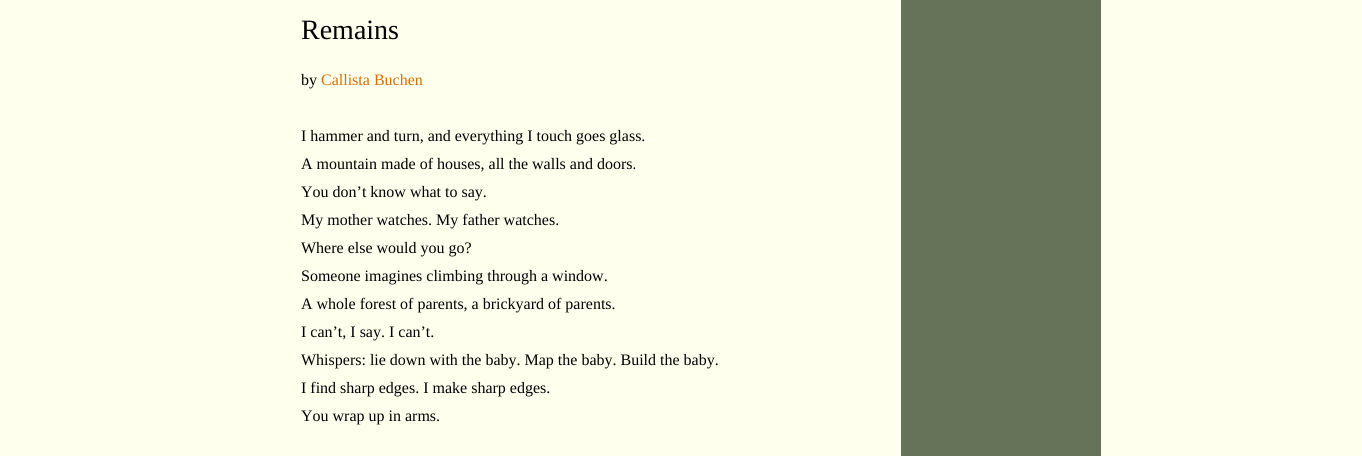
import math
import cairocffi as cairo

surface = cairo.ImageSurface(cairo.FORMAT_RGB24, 1362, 456)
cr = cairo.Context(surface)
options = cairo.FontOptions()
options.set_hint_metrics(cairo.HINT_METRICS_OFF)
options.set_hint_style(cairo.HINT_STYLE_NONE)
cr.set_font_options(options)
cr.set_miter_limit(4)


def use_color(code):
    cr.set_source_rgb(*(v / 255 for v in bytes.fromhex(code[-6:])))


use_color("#ffffee")
cr.paint()
cr.select_font_face("Liberation Serif")
cr.set_font_size(28)
use_color("#000000")
cr.move_to(301, 39)
cr.show_text("Remains")
cr.set_font_size(16)
cr.move_to(301, 85)
cr.show_text("by")
use_color("#d37006")
cr.move_to(321, 85)
cr.show_text("Callista Buchen")
use_color("#000000")
cr.move_to(301, 141)
cr.show_text("I hammer and turn, and everything I touch goes glass.")
cr.move_to(301, 169)
cr.show_text("A mountain made of houses, all the walls and doors.")
cr.move_to(301, 197)
cr.show_text("You don’t know what to say.")
cr.move_to(301, 225)
cr.show_text("My mother watches. My father watches.")
cr.move_to(301, 253)
cr.show_text("Where else would you go?")
cr.move_to(301, 281)
cr.show_text("Someone imagines climbing through a window.")
cr.move_to(301, 309)
cr.show_text("A whole forest of parents, a brickyard of parents.")
cr.move_to(301, 337)
cr.show_text("I can’t, I say. I can’t.")
cr.move_to(301, 365)
cr.show_text("Whispers: lie down with the baby. Map the baby. Build the baby.")
cr.move_to(301, 393)
cr.show_text("I find sharp edges. I make sharp edges.")
cr.move_to(301, 421)
cr.show_text("You wrap up in arms.")
use_color("#677358")
cr.rectangle(901, 0, 200, 456)
cr.fill()
surface.write_to_png("result.png")
